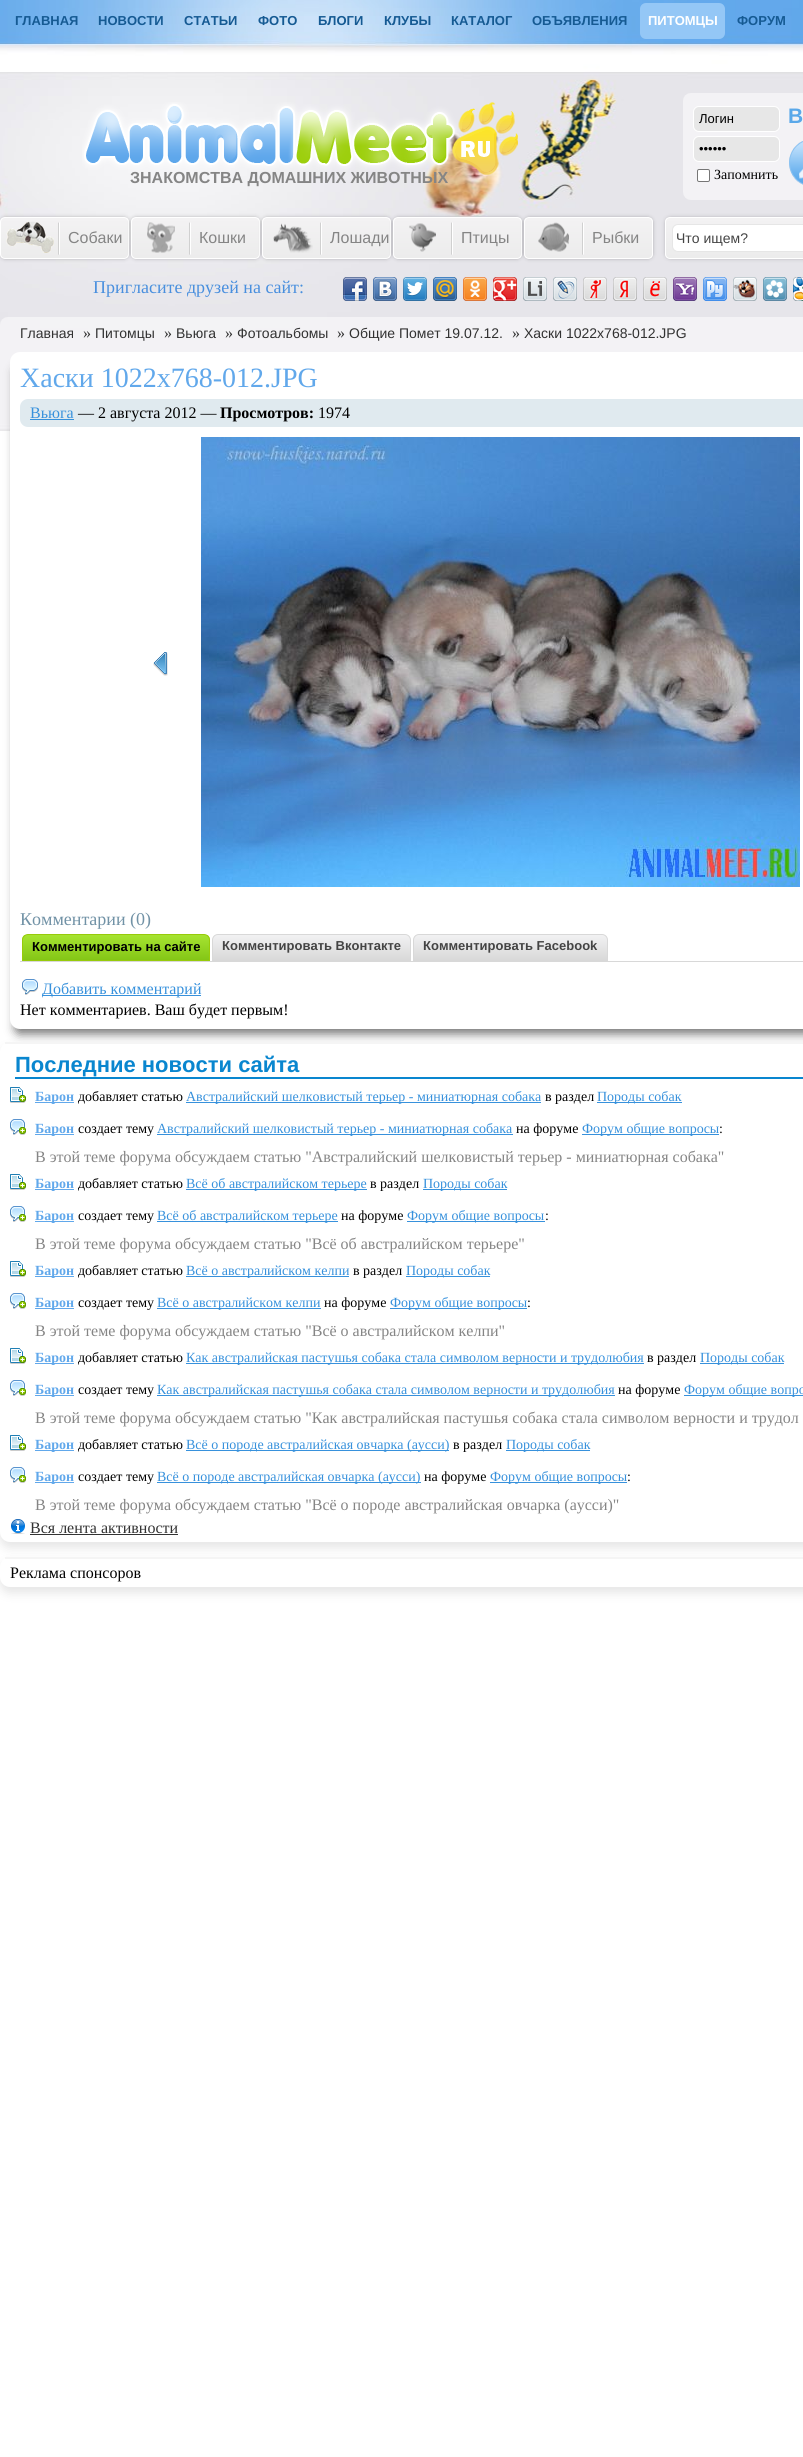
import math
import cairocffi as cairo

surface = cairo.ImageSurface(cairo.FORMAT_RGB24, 803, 2457)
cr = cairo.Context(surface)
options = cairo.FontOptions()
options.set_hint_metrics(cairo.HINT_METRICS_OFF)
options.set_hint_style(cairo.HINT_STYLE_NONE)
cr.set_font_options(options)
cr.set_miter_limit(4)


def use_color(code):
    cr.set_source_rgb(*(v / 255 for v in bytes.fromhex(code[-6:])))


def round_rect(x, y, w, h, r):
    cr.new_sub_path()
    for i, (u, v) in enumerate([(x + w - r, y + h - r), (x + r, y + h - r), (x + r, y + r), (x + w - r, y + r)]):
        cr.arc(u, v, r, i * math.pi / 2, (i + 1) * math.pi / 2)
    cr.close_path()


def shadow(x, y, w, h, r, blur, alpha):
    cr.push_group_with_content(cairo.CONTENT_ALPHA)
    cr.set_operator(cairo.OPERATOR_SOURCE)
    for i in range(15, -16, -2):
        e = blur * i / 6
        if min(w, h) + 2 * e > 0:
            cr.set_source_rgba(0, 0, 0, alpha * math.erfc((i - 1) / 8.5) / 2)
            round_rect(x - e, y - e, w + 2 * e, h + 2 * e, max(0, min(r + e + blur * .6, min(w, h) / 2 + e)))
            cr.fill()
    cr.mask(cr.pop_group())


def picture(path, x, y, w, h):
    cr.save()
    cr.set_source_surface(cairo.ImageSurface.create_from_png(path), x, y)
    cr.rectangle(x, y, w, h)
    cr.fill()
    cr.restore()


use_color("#ffffff")
cr.paint()
picture("img1.png", 0, 430, 10, 1)
picture("img2.png", 0, 43, 803, 387)
picture("img3.png", 0, 0, 803, 43)
cr.select_font_face("Liberation Sans", cairo.FONT_SLANT_NORMAL, cairo.FONT_WEIGHT_BOLD)
cr.set_font_size(13)
use_color("#155a93")
cr.move_to(15, 25)
cr.show_text("ГЛАВНАЯ")
cr.move_to(98, 25)
cr.show_text("НОВОСТИ")
cr.move_to(184, 25)
cr.show_text("СТАТЬИ")
cr.move_to(258, 25)
cr.show_text("ФОТО")
cr.move_to(318, 25)
cr.show_text("БЛОГИ")
cr.move_to(384, 25)
cr.show_text("КЛУБЫ")
cr.move_to(451, 25)
cr.show_text("КАТАЛОГ")
cr.move_to(532, 25)
cr.show_text("ОБЪЯВЛЕНИЯ")
use_color("#94c7f6")
round_rect(640, 3, 85, 36, 6)
cr.fill()
use_color("#ffffff")
cr.move_to(648, 25)
cr.show_text("ПИТОМЦЫ")
use_color("#155a93")
cr.move_to(737, 25)
cr.show_text("ФОРУМ")
picture("img4.png", 82, 102, 436, 73)
cr.set_font_size(16)
use_color("#858585")
cr.move_to(130, 183)
cr.show_text("ЗНАКОМСТВА ДОМАШНИХ ЖИВОТНЫХ")
picture("img5.png", 683, 93, 120, 107)
use_color("#e7e7e7")
round_rect(693.5, 106.5, 86, 25, 5.5)
cr.fill_preserve()
use_color("#ffffff")
cr.set_line_width(1)
cr.stroke()
cr.select_font_face("Liberation Sans")
cr.set_font_size(13)
use_color("#000000")
cr.move_to(699, 123)
cr.show_text("Логин")
use_color("#e7e7e7")
round_rect(693.5, 136.5, 86, 25, 5.5)
cr.fill_preserve()
use_color("#ffffff")
cr.stroke()
use_color("#000000")
cr.move_to(699, 153)
cr.show_text("••••••")
use_color("#ffffff")
round_rect(697.5, 169.5, 12, 12, 1.5)
cr.fill_preserve()
use_color("#767676")
cr.stroke()
cr.select_font_face("Liberation Serif")
cr.set_font_size(14)
use_color("#000000")
cr.move_to(714, 179)
cr.show_text("Запомнить")
cr.select_font_face("Liberation Sans", cairo.FONT_SLANT_NORMAL, cairo.FONT_WEIGHT_BOLD)
cr.set_font_size(21)
use_color("#5aa8e9")
cr.move_to(788, 123)
cr.show_text("В")
picture("img6.png", 789, 141, 14, 44)
use_color("#000000")
shadow(2, 219, 125, 38, 3, 2.5, 0.6)
cr.save()
round_rect(0, 217, 129, 42, 5)
cr.clip()
gradient = cairo.LinearGradient(65, 218, 65, 258)
gradient.add_color_stop_rgba(0, 0.953, 0.949, 0.953, 1)
gradient.add_color_stop_rgba(1, 0.925, 0.925, 0.925, 1)
cr.set_source(gradient)
cr.rectangle(0, 218, 129, 40)
cr.fill()
cr.restore()
round_rect(0.5, 217.5, 128, 41, 4.5)
use_color("#ffffff")
cr.stroke()
picture("img7.png", 6, 221, 48, 32)
picture("img8.png", 58, 222, 2, 33)
cr.select_font_face("Liberation Sans")
cr.set_font_size(16)
use_color("#858585")
cr.move_to(68, 243)
cr.show_text("Собаки")
use_color("#000000")
shadow(133, 219, 125, 38, 3, 2.5, 0.6)
cr.save()
round_rect(131, 217, 129, 42, 5)
cr.clip()
gradient = cairo.LinearGradient(196, 218, 196, 258)
gradient.add_color_stop_rgba(0, 0.953, 0.949, 0.953, 1)
gradient.add_color_stop_rgba(1, 0.925, 0.925, 0.925, 1)
cr.set_source(gradient)
cr.rectangle(131, 218, 129, 40)
cr.fill()
cr.restore()
round_rect(131.5, 217.5, 128, 41, 4.5)
use_color("#ffffff")
cr.stroke()
picture("img9.png", 147, 222, 28, 31)
picture("img8.png", 189, 222, 2, 33)
use_color("#858585")
cr.move_to(199, 243)
cr.show_text("Кошки")
use_color("#000000")
shadow(264, 219, 125, 38, 3, 2.5, 0.6)
cr.save()
round_rect(262, 217, 129, 42, 5)
cr.clip()
gradient = cairo.LinearGradient(327, 218, 327, 258)
gradient.add_color_stop_rgba(0, 0.953, 0.949, 0.953, 1)
gradient.add_color_stop_rgba(1, 0.925, 0.925, 0.925, 1)
cr.set_source(gradient)
cr.rectangle(262, 218, 129, 40)
cr.fill()
cr.restore()
round_rect(262.5, 217.5, 128, 41, 4.5)
use_color("#ffffff")
cr.stroke()
picture("img10.png", 273, 223, 40, 30)
picture("img8.png", 320, 222, 2, 33)
use_color("#858585")
cr.move_to(330, 243)
cr.show_text("Лошади")
use_color("#000000")
shadow(395, 219, 125, 38, 3, 2.5, 0.6)
cr.save()
round_rect(393, 217, 129, 42, 5)
cr.clip()
gradient = cairo.LinearGradient(458, 218, 458, 258)
gradient.add_color_stop_rgba(0, 0.953, 0.949, 0.953, 1)
gradient.add_color_stop_rgba(1, 0.925, 0.925, 0.925, 1)
cr.set_source(gradient)
cr.rectangle(393, 218, 129, 40)
cr.fill()
cr.restore()
round_rect(393.5, 217.5, 128, 41, 4.5)
use_color("#ffffff")
cr.stroke()
picture("img11.png", 409, 223, 27, 29)
picture("img8.png", 451, 222, 2, 33)
use_color("#858585")
cr.move_to(461, 243)
cr.show_text("Птицы")
use_color("#000000")
shadow(526, 219, 125, 38, 3, 2.5, 0.6)
cr.save()
round_rect(524, 217, 129, 42, 5)
cr.clip()
gradient = cairo.LinearGradient(589, 218, 589, 258)
gradient.add_color_stop_rgba(0, 0.953, 0.949, 0.953, 1)
gradient.add_color_stop_rgba(1, 0.925, 0.925, 0.925, 1)
cr.set_source(gradient)
cr.rectangle(524, 218, 129, 40)
cr.fill()
cr.restore()
round_rect(524.5, 217.5, 128, 41, 4.5)
use_color("#ffffff")
cr.stroke()
picture("img12.png", 538, 222, 31, 30)
picture("img8.png", 582, 222, 2, 33)
use_color("#858585")
cr.move_to(592, 243)
cr.show_text("Рыбки")
use_color("#000000")
shadow(667, 219, 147, 38, 3, 2.5, 0.5)
cr.save()
round_rect(665, 217, 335, 42, 5)
cr.clip()
gradient = cairo.LinearGradient(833, 218, 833, 258)
gradient.add_color_stop_rgba(0, 0.953, 0.949, 0.953, 1)
gradient.add_color_stop_rgba(1, 0.925, 0.925, 0.925, 1)
cr.set_source(gradient)
cr.rectangle(665, 218, 138, 40)
cr.fill()
cr.restore()
round_rect(665.5, 217.5, 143, 41, 4.5)
use_color("#ffffff")
cr.stroke()
round_rect(672.5, 224.5, 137, 27, 5.5)
cr.fill_preserve()
use_color("#e6e6e6")
cr.stroke()
cr.set_font_size(14)
use_color("#444444")
cr.move_to(676, 243)
cr.show_text("Что ищем?")
cr.select_font_face("Liberation Serif")
cr.set_font_size(18)
use_color("#498fde")
cr.move_to(93, 293)
cr.show_text("Пригласите друзей на сайт:")
picture("img13.png", 343, 277, 24, 24)
picture("img14.png", 373, 277, 24, 24)
picture("img15.png", 403, 277, 24, 24)
picture("img16.png", 433, 277, 24, 24)
picture("img17.png", 463, 277, 24, 24)
picture("img18.png", 493, 277, 24, 24)
picture("img19.png", 523, 277, 24, 24)
picture("img20.png", 553, 277, 24, 24)
picture("img21.png", 583, 277, 24, 24)
picture("img22.png", 613, 277, 24, 24)
picture("img23.png", 643, 277, 24, 24)
picture("img24.png", 673, 277, 24, 24)
picture("img25.png", 703, 277, 24, 24)
picture("img26.png", 733, 277, 24, 24)
picture("img27.png", 763, 277, 24, 24)
picture("img28.png", 793, 277, 10, 24)
picture("img29.png", 0, 317, 803, 114)
cr.select_font_face("Liberation Sans")
cr.set_font_size(14)
use_color("#323232")
cr.move_to(20, 338)
cr.show_text("Главная")
cr.select_font_face("Liberation Serif")
cr.set_font_size(16)
cr.move_to(83, 338)
cr.show_text("»")
cr.select_font_face("Liberation Sans")
cr.set_font_size(14)
cr.move_to(95, 338)
cr.show_text("Питомцы")
cr.select_font_face("Liberation Serif")
cr.set_font_size(16)
cr.move_to(164, 338)
cr.show_text("»")
cr.select_font_face("Liberation Sans")
cr.set_font_size(14)
cr.move_to(176, 338)
cr.show_text("Вьюга")
cr.select_font_face("Liberation Serif")
cr.set_font_size(16)
cr.move_to(225, 338)
cr.show_text("»")
cr.select_font_face("Liberation Sans")
cr.set_font_size(14)
cr.move_to(237, 338)
cr.show_text("Фотоальбомы")
cr.select_font_face("Liberation Serif")
cr.set_font_size(16)
cr.move_to(337, 338)
cr.show_text("»")
cr.select_font_face("Liberation Sans")
cr.set_font_size(14)
cr.move_to(349, 338)
cr.show_text("Общие Помет 19.07.12.")
cr.select_font_face("Liberation Serif")
cr.set_font_size(16)
cr.move_to(512, 338)
cr.show_text("»")
cr.select_font_face("Liberation Sans")
cr.set_font_size(14)
cr.move_to(524, 338)
cr.show_text("Хаски 1022x768-012.JPG")
use_color("#777777")
shadow(15, 367, 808, 667, 5, 5, 1)
use_color("#ffffff")
round_rect(10, 352, 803, 677, 10)
cr.fill()
cr.select_font_face("Liberation Serif")
cr.set_font_size(28)
use_color("#61a8eb")
cr.move_to(20, 387)
cr.show_text("Хаски 1022x768-012.JPG")
use_color("#e0eaef")
round_rect(20, 399, 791, 28, 8)
cr.fill()
cr.set_font_size(16)
use_color("#3791dc")
cr.move_to(30, 418)
cr.show_text("Вьюга")
cr.rectangle(30, 419, 44, 1)
cr.fill()
use_color("#000000")
cr.move_to(78, 418)
cr.show_text("— 2 августа 2012 —")
cr.select_font_face("Liberation Serif", cairo.FONT_SLANT_NORMAL, cairo.FONT_WEIGHT_BOLD)
cr.move_to(220, 418)
cr.show_text("Просмотров:")
cr.select_font_face("Liberation Serif")
cr.move_to(318, 418)
cr.show_text("1974")
picture("img30.png", 153, 652, 15, 24)
picture("img31.png", 201, 437, 599, 450)
cr.set_font_size(18)
use_color("#7192a6")
cr.move_to(20, 925)
cr.show_text("Комментарии (0)")
cr.save()
cr.new_path()
cr.move_to(28, 934)
cr.line_to(204, 934)
cr.curve_to(207.5, 934, 210, 936.5, 210, 940)
cr.line_to(210, 961)
cr.line_to(22, 961)
cr.line_to(22, 940)
cr.curve_to(22, 936.5, 24.5, 934, 28, 934)
cr.close_path()
cr.clip()
gradient = cairo.LinearGradient(116, 935, 116, 960)
gradient.add_color_stop_rgba(0, 0.651, 0.894, 0.192, 1)
gradient.add_color_stop_rgba(1, 0.518, 0.776, 0.086, 1)
cr.set_source(gradient)
cr.rectangle(22, 935, 188, 25)
cr.fill()
cr.restore()
cr.new_path()
cr.move_to(28, 934.5)
cr.line_to(204, 934.5)
cr.curve_to(207, 934.5, 209.5, 937, 209.5, 940)
cr.line_to(209.5, 960.5)
cr.line_to(22.5, 960.5)
cr.line_to(22.5, 940)
cr.curve_to(22.5, 937, 25, 934.5, 28, 934.5)
cr.close_path()
use_color("#97cb0a")
cr.stroke()
cr.select_font_face("Liberation Sans", cairo.FONT_SLANT_NORMAL, cairo.FONT_WEIGHT_BOLD)
cr.set_font_size(13)
use_color("#000000")
cr.move_to(32, 951)
cr.show_text("Комментировать на сайте")
gradient = cairo.LinearGradient(312, 934, 312, 961)
gradient.add_color_stop_rgba(0, 0.949, 0.949, 0.953, 1)
gradient.add_color_stop_rgba(1, 0.847, 0.847, 0.847, 1)
cr.set_source(gradient)
cr.new_path()
cr.move_to(218, 934.5)
cr.line_to(405, 934.5)
cr.curve_to(408, 934.5, 410.5, 937, 410.5, 940)
cr.line_to(410.5, 960.5)
cr.line_to(212.5, 960.5)
cr.line_to(212.5, 940)
cr.curve_to(212.5, 937, 215, 934.5, 218, 934.5)
cr.close_path()
cr.fill_preserve()
use_color("#d8d8d8")
cr.stroke()
use_color("#444444")
cr.move_to(222, 950)
cr.show_text("Комментировать Вконтакте")
gradient = cairo.LinearGradient(511, 934, 511, 961)
gradient.add_color_stop_rgba(0, 0.949, 0.949, 0.953, 1)
gradient.add_color_stop_rgba(1, 0.847, 0.847, 0.847, 1)
cr.set_source(gradient)
cr.new_path()
cr.move_to(419, 934.5)
cr.line_to(602, 934.5)
cr.curve_to(605, 934.5, 607.5, 937, 607.5, 940)
cr.line_to(607.5, 960.5)
cr.line_to(413.5, 960.5)
cr.line_to(413.5, 940)
cr.curve_to(413.5, 937, 416, 934.5, 419, 934.5)
cr.close_path()
cr.fill_preserve()
use_color("#d8d8d8")
cr.stroke()
use_color("#444444")
cr.move_to(423, 950)
cr.show_text("Комментировать Facebook")
use_color("#d8d8d8")
cr.rectangle(20, 961, 783, 1)
cr.fill()
picture("img32.png", 22, 979, 16, 16)
use_color("#3791dc")
cr.rectangle(42, 995, 159, 1)
cr.fill()
cr.select_font_face("Liberation Serif")
cr.set_font_size(16)
cr.move_to(42, 994)
cr.show_text("Добавить комментарий")
use_color("#000000")
cr.move_to(20, 1015)
cr.show_text("Нет комментариев. Ваш будет первым!")
use_color("#e6e6e6")
shadow(0, 1048, 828, 500, 10, 5, 1)
use_color("#ffffff")
round_rect(0, 1042, 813, 500, 10)
cr.fill()
use_color("#f5f5f5")
cr.rectangle(5, 1042, 798, 2)
cr.fill()
use_color("#0986cf")
cr.rectangle(15, 1077, 788, 2)
cr.fill()
cr.select_font_face("Liberation Sans", cairo.FONT_SLANT_NORMAL, cairo.FONT_WEIGHT_BOLD)
cr.set_font_size(22)
cr.move_to(15, 1072)
cr.show_text("Последние новости сайта")
picture("img33.png", 10, 1087, 16, 16)
use_color("#61a8eb")
cr.rectangle(35, 1102, 39, 1)
cr.fill()
cr.select_font_face("Liberation Serif", cairo.FONT_SLANT_NORMAL, cairo.FONT_WEIGHT_BOLD)
cr.set_font_size(14)
cr.move_to(35, 1101)
cr.show_text("Барон")
cr.select_font_face("Liberation Serif")
use_color("#000000")
cr.move_to(78, 1101)
cr.show_text("добавляет статью")
use_color("#3791dc")
cr.rectangle(186, 1102, 355, 1)
cr.fill()
cr.move_to(186, 1101)
cr.show_text("Австралийский шелковистый терьер - миниатюрная собака")
use_color("#000000")
cr.move_to(545, 1101)
cr.show_text("в раздел")
use_color("#3791dc")
cr.rectangle(597, 1102, 85, 1)
cr.fill()
cr.move_to(597, 1101)
cr.show_text("Породы собак")
picture("img34.png", 10, 1119, 16, 16)
use_color("#61a8eb")
cr.rectangle(35, 1134, 39, 1)
cr.fill()
cr.select_font_face("Liberation Serif", cairo.FONT_SLANT_NORMAL, cairo.FONT_WEIGHT_BOLD)
cr.move_to(35, 1133)
cr.show_text("Барон")
cr.select_font_face("Liberation Serif")
use_color("#000000")
cr.move_to(78, 1133)
cr.show_text("создает тему")
use_color("#3791dc")
cr.rectangle(157, 1134, 356, 1)
cr.fill()
cr.move_to(157, 1133)
cr.show_text("Австралийский шелковистый терьер - миниатюрная собака")
use_color("#000000")
cr.move_to(516, 1133)
cr.show_text("на форуме")
use_color("#3791dc")
cr.rectangle(582, 1134, 137, 1)
cr.fill()
cr.move_to(582, 1133)
cr.show_text("Форум общие вопросы")
use_color("#000000")
cr.move_to(719, 1133)
cr.show_text(":")
cr.set_font_size(16)
use_color("#858585")
cr.move_to(35, 1162)
cr.show_text("В этой теме форума обсуждаем статью \"Австралийский шелковистый терьер - миниатюрная собака\"")
picture("img33.png", 10, 1174, 16, 16)
use_color("#61a8eb")
cr.rectangle(35, 1189, 39, 1)
cr.fill()
cr.select_font_face("Liberation Serif", cairo.FONT_SLANT_NORMAL, cairo.FONT_WEIGHT_BOLD)
cr.set_font_size(14)
cr.move_to(35, 1188)
cr.show_text("Барон")
cr.select_font_face("Liberation Serif")
use_color("#000000")
cr.move_to(78, 1188)
cr.show_text("добавляет статью")
use_color("#3791dc")
cr.rectangle(186, 1189, 181, 1)
cr.fill()
cr.move_to(186, 1188)
cr.show_text("Всё об австралийском терьере")
use_color("#000000")
cr.move_to(370, 1188)
cr.show_text("в раздел")
use_color("#3791dc")
cr.rectangle(423, 1189, 84, 1)
cr.fill()
cr.move_to(423, 1188)
cr.show_text("Породы собак")
picture("img34.png", 10, 1206, 16, 16)
use_color("#61a8eb")
cr.rectangle(35, 1221, 39, 1)
cr.fill()
cr.select_font_face("Liberation Serif", cairo.FONT_SLANT_NORMAL, cairo.FONT_WEIGHT_BOLD)
cr.move_to(35, 1220)
cr.show_text("Барон")
cr.select_font_face("Liberation Serif")
use_color("#000000")
cr.move_to(78, 1220)
cr.show_text("создает тему")
use_color("#3791dc")
cr.rectangle(157, 1221, 181, 1)
cr.fill()
cr.move_to(157, 1220)
cr.show_text("Всё об австралийском терьере")
use_color("#000000")
cr.move_to(341, 1220)
cr.show_text("на форуме")
use_color("#3791dc")
cr.rectangle(407, 1221, 138, 1)
cr.fill()
cr.move_to(407, 1220)
cr.show_text("Форум общие вопросы")
use_color("#000000")
cr.move_to(545, 1220)
cr.show_text(":")
cr.set_font_size(16)
use_color("#858585")
cr.move_to(35, 1249)
cr.show_text("В этой теме форума обсуждаем статью \"Всё об австралийском терьере\"")
picture("img33.png", 10, 1261, 16, 16)
use_color("#61a8eb")
cr.rectangle(35, 1276, 39, 1)
cr.fill()
cr.select_font_face("Liberation Serif", cairo.FONT_SLANT_NORMAL, cairo.FONT_WEIGHT_BOLD)
cr.set_font_size(14)
cr.move_to(35, 1275)
cr.show_text("Барон")
cr.select_font_face("Liberation Serif")
use_color("#000000")
cr.move_to(78, 1275)
cr.show_text("добавляет статью")
use_color("#3791dc")
cr.rectangle(186, 1276, 163, 1)
cr.fill()
cr.move_to(186, 1275)
cr.show_text("Всё о австралийском келпи")
use_color("#000000")
cr.move_to(353, 1275)
cr.show_text("в раздел")
use_color("#3791dc")
cr.rectangle(406, 1276, 84, 1)
cr.fill()
cr.move_to(406, 1275)
cr.show_text("Породы собак")
picture("img34.png", 10, 1293, 16, 16)
use_color("#61a8eb")
cr.rectangle(35, 1308, 39, 1)
cr.fill()
cr.select_font_face("Liberation Serif", cairo.FONT_SLANT_NORMAL, cairo.FONT_WEIGHT_BOLD)
cr.move_to(35, 1307)
cr.show_text("Барон")
cr.select_font_face("Liberation Serif")
use_color("#000000")
cr.move_to(78, 1307)
cr.show_text("создает тему")
use_color("#3791dc")
cr.rectangle(157, 1308, 164, 1)
cr.fill()
cr.move_to(157, 1307)
cr.show_text("Всё о австралийском келпи")
use_color("#000000")
cr.move_to(324, 1307)
cr.show_text("на форуме")
use_color("#3791dc")
cr.rectangle(390, 1308, 137, 1)
cr.fill()
cr.move_to(390, 1307)
cr.show_text("Форум общие вопросы")
use_color("#000000")
cr.move_to(527, 1307)
cr.show_text(":")
cr.set_font_size(16)
use_color("#858585")
cr.move_to(35, 1336)
cr.show_text("В этой теме форума обсуждаем статью \"Всё о австралийском келпи\"")
picture("img33.png", 10, 1348, 16, 16)
use_color("#61a8eb")
cr.rectangle(35, 1363, 39, 1)
cr.fill()
cr.select_font_face("Liberation Serif", cairo.FONT_SLANT_NORMAL, cairo.FONT_WEIGHT_BOLD)
cr.set_font_size(14)
cr.move_to(35, 1362)
cr.show_text("Барон")
cr.select_font_face("Liberation Serif")
use_color("#000000")
cr.move_to(78, 1362)
cr.show_text("добавляет статью")
use_color("#3791dc")
cr.rectangle(186, 1363, 458, 1)
cr.fill()
cr.move_to(186, 1362)
cr.show_text("Как австралийская пастушья собака стала символом верности и трудолюбия")
use_color("#000000")
cr.move_to(647, 1362)
cr.show_text("в раздел")
use_color("#3791dc")
cr.rectangle(700, 1363, 84, 1)
cr.fill()
cr.move_to(700, 1362)
cr.show_text("Породы собак")
picture("img34.png", 10, 1380, 16, 16)
use_color("#61a8eb")
cr.rectangle(35, 1395, 39, 1)
cr.fill()
cr.select_font_face("Liberation Serif", cairo.FONT_SLANT_NORMAL, cairo.FONT_WEIGHT_BOLD)
cr.move_to(35, 1394)
cr.show_text("Барон")
cr.select_font_face("Liberation Serif")
use_color("#000000")
cr.move_to(78, 1394)
cr.show_text("создает тему")
use_color("#3791dc")
cr.rectangle(157, 1395, 458, 1)
cr.fill()
cr.move_to(157, 1394)
cr.show_text("Как австралийская пастушья собака стала символом верности и трудолюбия")
use_color("#000000")
cr.move_to(618, 1394)
cr.show_text("на форуме")
use_color("#3791dc")
cr.rectangle(684, 1395, 119, 1)
cr.fill()
cr.move_to(684, 1394)
cr.show_text("Форум общие вопро")
cr.set_font_size(16)
use_color("#858585")
cr.move_to(35, 1423)
cr.show_text("В этой теме форума обсуждаем статью \"Как австралийская пастушья собака стала символом верности и трудол")
picture("img33.png", 10, 1435, 16, 16)
use_color("#61a8eb")
cr.rectangle(35, 1450, 39, 1)
cr.fill()
cr.select_font_face("Liberation Serif", cairo.FONT_SLANT_NORMAL, cairo.FONT_WEIGHT_BOLD)
cr.set_font_size(14)
cr.move_to(35, 1449)
cr.show_text("Барон")
cr.select_font_face("Liberation Serif")
use_color("#000000")
cr.move_to(78, 1449)
cr.show_text("добавляет статью")
use_color("#3791dc")
cr.rectangle(186, 1450, 263, 1)
cr.fill()
cr.move_to(186, 1449)
cr.show_text("Всё о породе австралийская овчарка (аусси)")
use_color("#000000")
cr.move_to(453, 1449)
cr.show_text("в раздел")
use_color("#3791dc")
cr.rectangle(506, 1450, 84, 1)
cr.fill()
cr.move_to(506, 1449)
cr.show_text("Породы собак")
picture("img34.png", 10, 1467, 16, 16)
use_color("#61a8eb")
cr.rectangle(35, 1482, 39, 1)
cr.fill()
cr.select_font_face("Liberation Serif", cairo.FONT_SLANT_NORMAL, cairo.FONT_WEIGHT_BOLD)
cr.move_to(35, 1481)
cr.show_text("Барон")
cr.select_font_face("Liberation Serif")
use_color("#000000")
cr.move_to(78, 1481)
cr.show_text("создает тему")
use_color("#3791dc")
cr.rectangle(157, 1482, 264, 1)
cr.fill()
cr.move_to(157, 1481)
cr.show_text("Всё о породе австралийская овчарка (аусси)")
use_color("#000000")
cr.move_to(424, 1481)
cr.show_text("на форуме")
use_color("#3791dc")
cr.rectangle(490, 1482, 137, 1)
cr.fill()
cr.move_to(490, 1481)
cr.show_text("Форум общие вопросы")
use_color("#000000")
cr.move_to(627, 1481)
cr.show_text(":")
cr.set_font_size(16)
use_color("#858585")
cr.move_to(35, 1510)
cr.show_text("В этой теме форума обсуждаем статью \"Всё о породе австралийская овчарка (аусси)\"")
picture("img35.png", 11, 1519, 14, 15)
use_color("#323232")
cr.move_to(30, 1533)
cr.show_text("Вся лента активности")
use_color("#333333")
cr.rectangle(30, 1534, 148, 1)
cr.fill()
use_color("#e6e6e6")
shadow(0, 1563, 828, 30, 10, 5, 1)
use_color("#ffffff")
round_rect(0, 1557, 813, 30, 10)
cr.fill()
use_color("#f5f5f5")
cr.rectangle(5, 1557, 798, 2)
cr.fill()
use_color("#000000")
cr.move_to(10, 1578)
cr.show_text("Реклама спонсоров")
surface.write_to_png("result.png")
